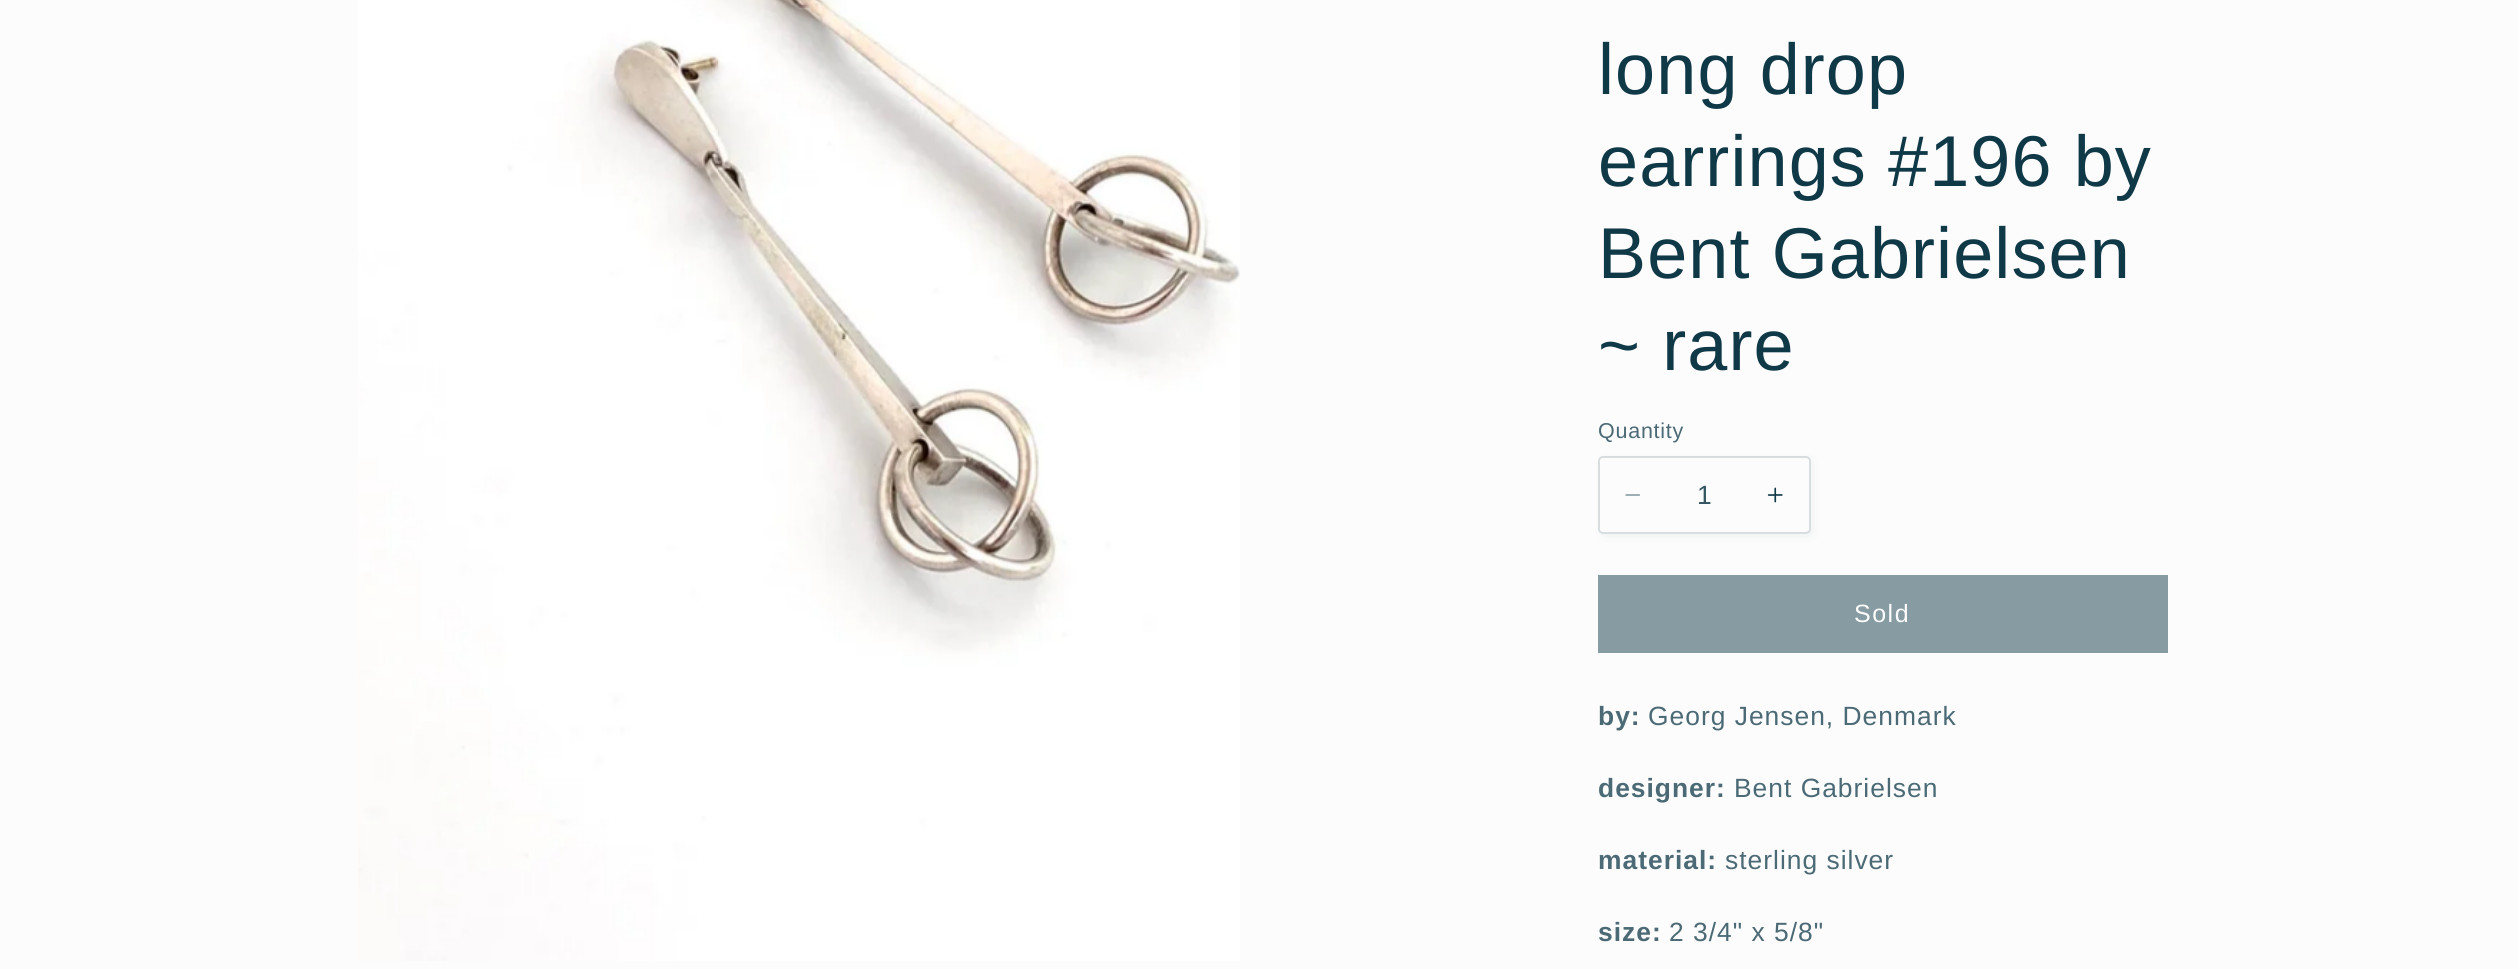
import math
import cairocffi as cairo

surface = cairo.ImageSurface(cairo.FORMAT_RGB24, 2518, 969)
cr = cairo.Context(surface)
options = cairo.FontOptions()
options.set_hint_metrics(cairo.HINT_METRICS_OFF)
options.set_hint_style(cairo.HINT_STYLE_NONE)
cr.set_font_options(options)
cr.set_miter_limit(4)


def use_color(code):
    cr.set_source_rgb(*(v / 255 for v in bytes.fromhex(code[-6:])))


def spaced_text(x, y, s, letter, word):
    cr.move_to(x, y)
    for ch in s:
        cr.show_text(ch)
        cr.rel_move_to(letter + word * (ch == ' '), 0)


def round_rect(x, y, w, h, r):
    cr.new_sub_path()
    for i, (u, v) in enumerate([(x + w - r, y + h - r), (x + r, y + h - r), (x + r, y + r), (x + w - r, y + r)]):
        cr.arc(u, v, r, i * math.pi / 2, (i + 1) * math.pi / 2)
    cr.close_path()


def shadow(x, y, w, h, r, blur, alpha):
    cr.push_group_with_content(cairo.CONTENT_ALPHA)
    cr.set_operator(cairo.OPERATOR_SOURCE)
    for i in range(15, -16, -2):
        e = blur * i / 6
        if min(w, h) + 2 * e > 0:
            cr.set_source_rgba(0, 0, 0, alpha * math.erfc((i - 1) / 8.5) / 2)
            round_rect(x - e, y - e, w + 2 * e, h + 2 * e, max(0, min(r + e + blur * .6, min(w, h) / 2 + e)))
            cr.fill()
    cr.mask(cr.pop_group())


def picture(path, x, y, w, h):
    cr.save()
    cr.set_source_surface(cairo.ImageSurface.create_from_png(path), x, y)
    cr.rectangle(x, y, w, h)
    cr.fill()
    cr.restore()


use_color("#fcfcfc")
cr.paint()
picture("img1.png", 358, 0, 882, 961)
cr.select_font_face("Liberation Sans")
cr.set_font_size(72)
use_color("#103948")
spaced_text(1598, 94, "long drop", 1.1, 0)
spaced_text(1598, 186, "earrings #196 by", 1.1, 0)
spaced_text(1598, 278, "Bent Gabrielsen", 1.1, 0)
spaced_text(1598, 370, "~ rare", 1.1, 0)
cr.set_font_size(21.5)
use_color("#4b6a75")
spaced_text(1598, 438, "Quantity", 0.75, 0)
use_color("#103948")
shadow(1601, 459, 213, 78, 5, 4, 0.05)
use_color("#fcfcfc")
round_rect(1598, 456, 213, 78, 5)
cr.fill()
picture("img2.png", 1625, 494, 15, 2)
picture("img3.png", 1767, 487, 16, 16)
round_rect(1599, 457, 211, 76, 4)
cr.set_source_rgba(0.063, 0.224, 0.282, 0.15)
cr.stroke()
cr.set_font_size(26.4)
use_color("#335663")
cr.move_to(1697, 504)
cr.show_text("1")
use_color("#869ba2")
cr.rectangle(1598, 575, 570, 78)
cr.fill()
cr.set_font_size(25)
use_color("#fcfcfc")
spaced_text(1854, 622, "Sold", 1.5, 0)
cr.select_font_face("Liberation Sans", cairo.FONT_SLANT_NORMAL, cairo.FONT_WEIGHT_BOLD)
cr.set_font_size(26.4)
use_color("#4b6a75")
spaced_text(1598, 725, "by:", 1, 0)
cr.select_font_face("Liberation Sans")
spaced_text(1648, 725, "Georg Jensen, Denmark", 1, 0)
cr.select_font_face("Liberation Sans", cairo.FONT_SLANT_NORMAL, cairo.FONT_WEIGHT_BOLD)
spaced_text(1598, 797, "designer:", 1, 0)
cr.select_font_face("Liberation Sans")
spaced_text(1734, 797, "Bent Gabrielsen", 1, 0)
cr.select_font_face("Liberation Sans", cairo.FONT_SLANT_NORMAL, cairo.FONT_WEIGHT_BOLD)
spaced_text(1598, 869, "material:", 1, 0)
cr.select_font_face("Liberation Sans")
spaced_text(1725, 869, "sterling silver", 1, 0)
cr.select_font_face("Liberation Sans", cairo.FONT_SLANT_NORMAL, cairo.FONT_WEIGHT_BOLD)
spaced_text(1598, 941, "size:", 1, 0)
cr.select_font_face("Liberation Sans")
spaced_text(1669, 941, "2 3/4\" x 5/8\"", 1, 0)
surface.write_to_png("result.png")
